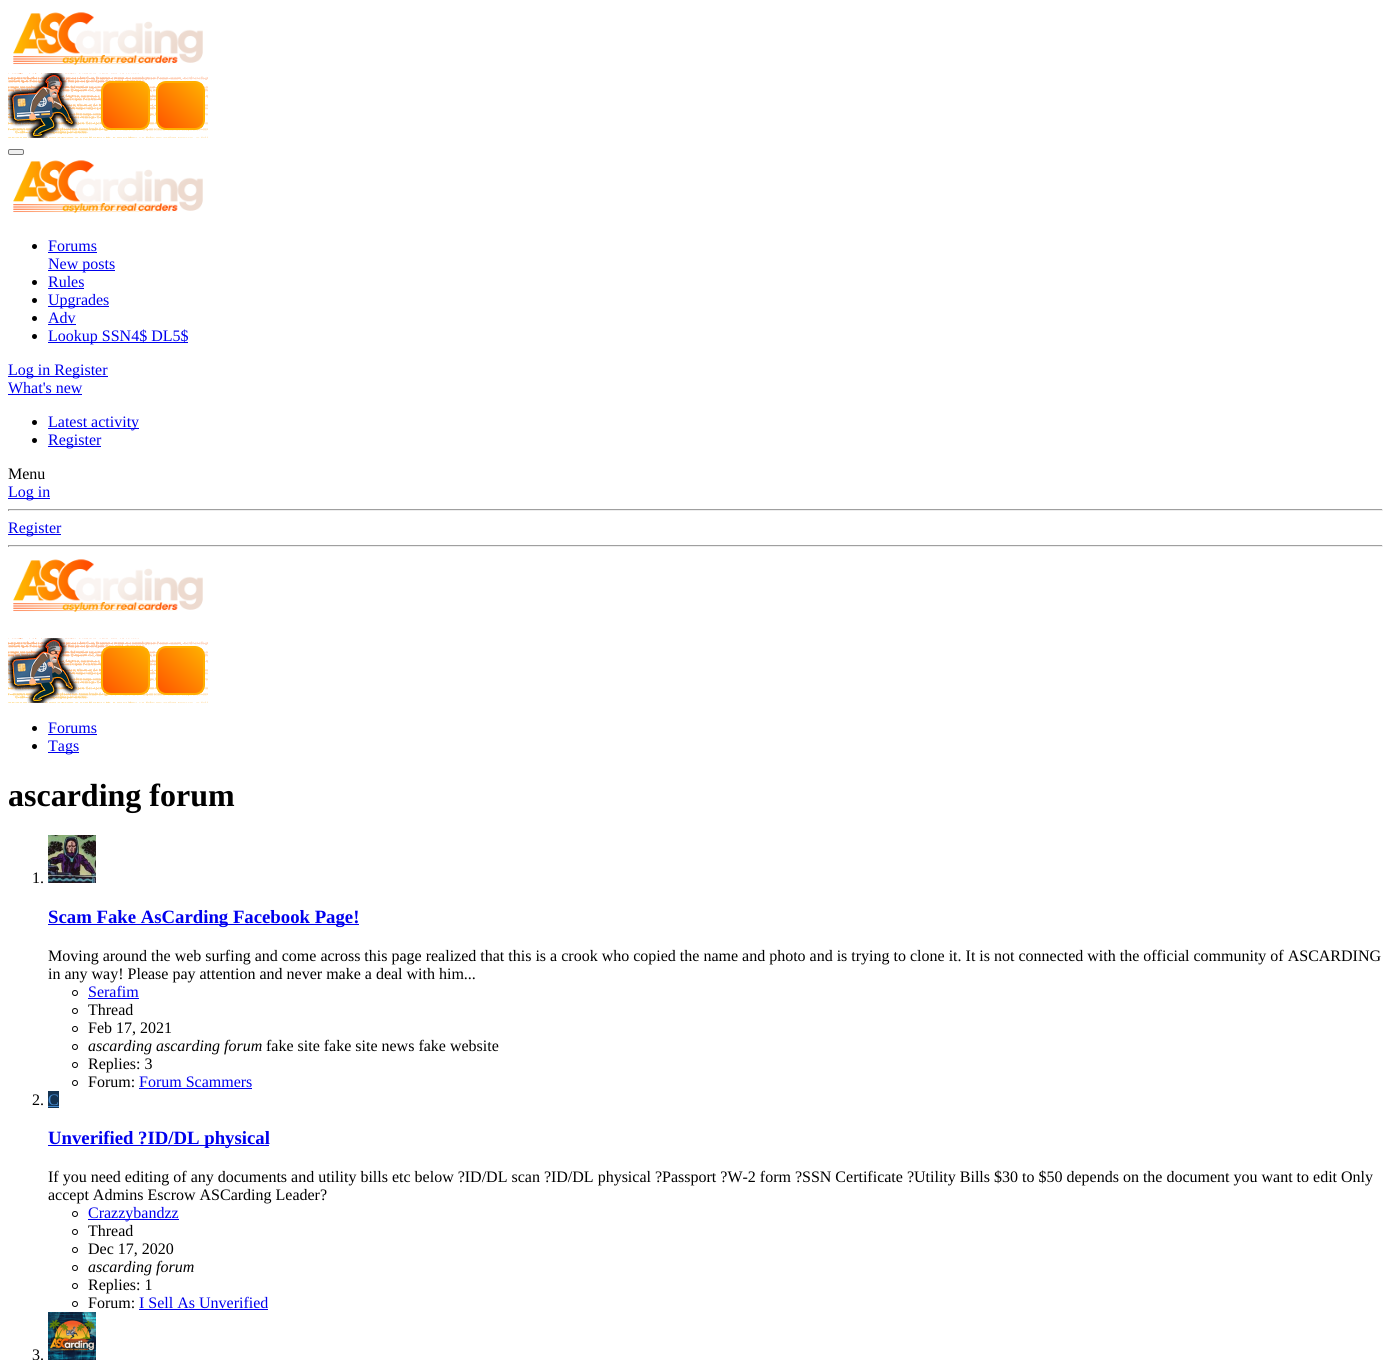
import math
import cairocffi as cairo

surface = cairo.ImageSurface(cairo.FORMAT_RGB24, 1391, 1360)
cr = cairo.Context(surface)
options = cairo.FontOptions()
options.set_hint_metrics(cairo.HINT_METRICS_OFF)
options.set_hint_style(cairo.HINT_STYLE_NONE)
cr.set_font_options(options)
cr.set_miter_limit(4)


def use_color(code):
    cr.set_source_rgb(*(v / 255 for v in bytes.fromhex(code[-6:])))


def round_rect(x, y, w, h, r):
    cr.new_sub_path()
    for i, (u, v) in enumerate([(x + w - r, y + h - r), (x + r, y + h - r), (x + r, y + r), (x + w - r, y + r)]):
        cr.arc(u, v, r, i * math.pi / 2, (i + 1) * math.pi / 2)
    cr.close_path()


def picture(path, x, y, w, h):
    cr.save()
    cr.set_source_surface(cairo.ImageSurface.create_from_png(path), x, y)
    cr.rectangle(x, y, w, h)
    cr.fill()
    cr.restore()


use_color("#ffffff")
cr.paint()
picture("img1.png", 13, 12, 190, 53)
picture("img2.png", 8, 73, 200, 65)
cr.save()
round_rect(101, 81, 49, 49, 10)
cr.clip()
gradient = cairo.LinearGradient(103, 128, 148, 83)
gradient.add_color_stop_rgba(0, 1, 0.333, 0, 1)
gradient.add_color_stop_rgba(1, 1, 0.686, 0, 1)
cr.set_source(gradient)
cr.rectangle(103, 83, 45, 45)
cr.fill()
cr.restore()
round_rect(102, 82, 47, 47, 9)
use_color("#ffaf00")
cr.stroke()
cr.save()
round_rect(156, 81, 49, 49, 10)
cr.clip()
gradient = cairo.LinearGradient(158, 128, 203, 83)
gradient.add_color_stop_rgba(0, 1, 0.333, 0, 1)
gradient.add_color_stop_rgba(1, 1, 0.686, 0, 1)
cr.set_source(gradient)
cr.rectangle(158, 83, 45, 45)
cr.fill()
cr.restore()
round_rect(157, 82, 47, 47, 9)
cr.stroke()
use_color("#efefef")
round_rect(8.5, 149.5, 15, 5, 1.5)
cr.fill_preserve()
use_color("#767676")
cr.set_line_width(1)
cr.stroke()
picture("img1.png", 13, 160, 190, 53)
use_color("#000000")
cr.arc(34.5, 246.5, 2.5, 0, 2 * math.pi)
cr.fill()
cr.select_font_face("Liberation Serif")
cr.set_font_size(16)
use_color("#0000ee")
cr.move_to(48, 251)
cr.show_text("Forums")
cr.rectangle(48, 252, 49, 1)
cr.fill()
cr.rectangle(48, 270, 67, 1)
cr.fill()
cr.move_to(48, 269)
cr.show_text("New posts")
use_color("#000000")
cr.new_path()
cr.arc(34.5, 282.5, 2.5, 0, 2 * math.pi)
cr.fill()
use_color("#0000ee")
cr.move_to(48, 287)
cr.show_text("Rules")
cr.rectangle(48, 288, 36, 1)
cr.fill()
use_color("#000000")
cr.arc(34.5, 300.5, 2.5, 0, 2 * math.pi)
cr.fill()
use_color("#0000ee")
cr.rectangle(48, 306, 61, 1)
cr.fill()
cr.move_to(48, 305)
cr.show_text("Upgrades")
use_color("#000000")
cr.new_path()
cr.arc(34.5, 318.5, 2.5, 0, 2 * math.pi)
cr.fill()
use_color("#0000ee")
cr.move_to(48, 323)
cr.show_text("Adv")
cr.rectangle(48, 324, 28, 1)
cr.fill()
use_color("#000000")
cr.arc(34.5, 336.5, 2.5, 0, 2 * math.pi)
cr.fill()
use_color("#0000ee")
cr.rectangle(48, 342, 140, 1)
cr.fill()
cr.move_to(48, 341)
cr.show_text("Lookup SSN4$ DL5$")
cr.rectangle(8, 376, 100, 1)
cr.fill()
cr.move_to(8, 375)
cr.show_text("Log in Register")
cr.move_to(8, 393)
cr.show_text("What's new")
cr.rectangle(8, 394, 74, 1)
cr.fill()
use_color("#000000")
cr.arc(34.5, 422.5, 2.5, 0, 2 * math.pi)
cr.fill()
use_color("#0000ee")
cr.rectangle(48, 428, 91, 1)
cr.fill()
cr.move_to(48, 427)
cr.show_text("Latest activity")
use_color("#000000")
cr.new_path()
cr.arc(34.5, 440.5, 2.5, 0, 2 * math.pi)
cr.fill()
use_color("#0000ee")
cr.rectangle(48, 446, 53, 1)
cr.fill()
cr.move_to(48, 445)
cr.show_text("Register")
use_color("#000000")
cr.move_to(8, 479)
cr.show_text("Menu")
use_color("#0000ee")
cr.rectangle(8, 498, 42, 1)
cr.fill()
cr.move_to(8, 497)
cr.show_text("Log in")
use_color("#9f9f9f")
cr.rectangle(8, 509, 1375, 1)
cr.fill()
use_color("#eeeeee")
cr.rectangle(1382, 509, 1, 2)
cr.fill()
cr.rectangle(8, 510, 1375, 1)
cr.fill()
use_color("#9f9f9f")
cr.rectangle(8, 509, 1, 2)
cr.fill()
use_color("#0000ee")
cr.rectangle(8, 534, 53, 1)
cr.fill()
cr.move_to(8, 533)
cr.show_text("Register")
use_color("#9f9f9f")
cr.rectangle(8, 545, 1375, 1)
cr.fill()
use_color("#eeeeee")
cr.rectangle(1382, 545, 1, 2)
cr.fill()
cr.rectangle(8, 546, 1375, 1)
cr.fill()
use_color("#9f9f9f")
cr.rectangle(8, 545, 1, 2)
cr.fill()
picture("img1.png", 13, 559, 190, 53)
picture("img2.png", 8, 638, 200, 65)
cr.save()
round_rect(101, 646, 49, 49, 10)
cr.clip()
gradient = cairo.LinearGradient(103, 693, 148, 648)
gradient.add_color_stop_rgba(0, 1, 0.333, 0, 1)
gradient.add_color_stop_rgba(1, 1, 0.686, 0, 1)
cr.set_source(gradient)
cr.rectangle(103, 648, 45, 45)
cr.fill()
cr.restore()
round_rect(102, 647, 47, 47, 9)
use_color("#ffaf00")
cr.set_line_width(2)
cr.stroke()
cr.save()
round_rect(156, 646, 49, 49, 10)
cr.clip()
gradient = cairo.LinearGradient(158, 693, 203, 648)
gradient.add_color_stop_rgba(0, 1, 0.333, 0, 1)
gradient.add_color_stop_rgba(1, 1, 0.686, 0, 1)
cr.set_source(gradient)
cr.rectangle(158, 648, 45, 45)
cr.fill()
cr.restore()
round_rect(157, 647, 47, 47, 9)
cr.stroke()
use_color("#000000")
cr.arc(34.5, 728.5, 2.5, 0, 2 * math.pi)
cr.fill()
use_color("#0000ee")
cr.move_to(48, 733)
cr.show_text("Forums")
cr.rectangle(48, 734, 49, 1)
cr.fill()
use_color("#000000")
cr.arc(34.5, 746.5, 2.5, 0, 2 * math.pi)
cr.fill()
use_color("#0000ee")
cr.rectangle(48, 752, 31, 1)
cr.fill()
cr.move_to(48, 751)
cr.show_text("Tags")
cr.select_font_face("Liberation Serif", cairo.FONT_SLANT_NORMAL, cairo.FONT_WEIGHT_BOLD)
cr.set_font_size(32)
use_color("#000000")
cr.move_to(8, 806)
cr.show_text("ascarding forum")
cr.select_font_face("Liberation Serif")
cr.set_font_size(16)
cr.move_to(32, 883)
cr.show_text("1.")
picture("img3.png", 48, 835, 48, 48)
use_color("#0000ee")
cr.rectangle(48, 924, 311, 1)
cr.fill()
cr.select_font_face("Liberation Serif", cairo.FONT_SLANT_NORMAL, cairo.FONT_WEIGHT_BOLD)
cr.set_font_size(18.75)
cr.move_to(48, 923)
cr.show_text("Scam Fake AsCarding Facebook Page!")
cr.select_font_face("Liberation Serif")
cr.set_font_size(16)
use_color("#000000")
cr.move_to(48, 961)
cr.show_text("Moving around the web surfing and come across this page realized that this is a crook who copied the name and photo and is trying to clone it. It is not connected with the official community of ASCARDING")
cr.move_to(48, 979)
cr.show_text("in any way! Please pay attention and never make a deal with him...")
cr.new_path()
cr.arc(75, 993, 2.5, 0, 2 * math.pi)
cr.set_line_width(1)
cr.stroke()
use_color("#0000ee")
cr.move_to(88, 997)
cr.show_text("Serafim")
cr.rectangle(88, 998, 51, 1)
cr.fill()
cr.arc(75, 1011, 2.5, 0, 2 * math.pi)
use_color("#000000")
cr.stroke()
cr.move_to(88, 1015)
cr.show_text("Thread")
cr.new_path()
cr.arc(75, 1029, 2.5, 0, 2 * math.pi)
cr.stroke()
cr.move_to(88, 1033)
cr.show_text("Feb 17, 2021")
cr.new_path()
cr.arc(75, 1047, 2.5, 0, 2 * math.pi)
cr.stroke()
cr.select_font_face("Liberation Serif", cairo.FONT_SLANT_ITALIC)
cr.move_to(88, 1051)
cr.show_text("ascarding ascarding forum")
cr.select_font_face("Liberation Serif")
cr.move_to(266, 1051)
cr.show_text("fake site fake site news fake website")
cr.new_path()
cr.arc(75, 1065, 2.5, 0, 2 * math.pi)
cr.stroke()
cr.move_to(88, 1069)
cr.show_text("Replies: 3")
cr.new_path()
cr.arc(75, 1083, 2.5, 0, 2 * math.pi)
cr.stroke()
cr.move_to(88, 1087)
cr.show_text("Forum:")
use_color("#0000ee")
cr.move_to(139, 1087)
cr.show_text("Forum Scammers")
cr.rectangle(139, 1088, 113, 1)
cr.fill()
use_color("#000000")
cr.move_to(32, 1105)
cr.show_text("2.")
use_color("#143352")
cr.rectangle(48, 1091, 11, 17)
cr.fill()
use_color("#478cd1")
cr.move_to(48, 1105)
cr.show_text("C")
cr.rectangle(48, 1106, 11, 1)
cr.fill()
use_color("#0000ee")
cr.rectangle(48, 1145, 221, 1)
cr.fill()
cr.select_font_face("Liberation Serif", cairo.FONT_SLANT_NORMAL, cairo.FONT_WEIGHT_BOLD)
cr.set_font_size(18.75)
cr.move_to(48, 1144)
cr.show_text("Unverified ?ID/DL physical")
cr.select_font_face("Liberation Serif")
cr.set_font_size(16)
use_color("#000000")
cr.move_to(48, 1182)
cr.show_text("If you need editing of any documents and utility bills etc below ?ID/DL scan ?ID/DL physical ?Passport ?W-2 form ?SSN Certificate ?Utility Bills $30 to $50 depends on the document you want to edit Only")
cr.move_to(48, 1200)
cr.show_text("accept Admins Escrow ASCarding Leader?")
cr.new_path()
cr.arc(75, 1214, 2.5, 0, 2 * math.pi)
cr.stroke()
use_color("#0000ee")
cr.rectangle(88, 1219, 91, 1)
cr.fill()
cr.move_to(88, 1218)
cr.show_text("Crazzybandzz")
cr.new_path()
cr.arc(75, 1232, 2.5, 0, 2 * math.pi)
use_color("#000000")
cr.stroke()
cr.move_to(88, 1236)
cr.show_text("Thread")
cr.new_path()
cr.arc(75, 1250, 2.5, 0, 2 * math.pi)
cr.stroke()
cr.move_to(88, 1254)
cr.show_text("Dec 17, 2020")
cr.new_path()
cr.arc(75, 1268, 2.5, 0, 2 * math.pi)
cr.stroke()
cr.select_font_face("Liberation Serif", cairo.FONT_SLANT_ITALIC)
cr.move_to(88, 1272)
cr.show_text("ascarding forum")
cr.new_path()
cr.arc(75, 1286, 2.5, 0, 2 * math.pi)
cr.stroke()
cr.select_font_face("Liberation Serif")
cr.move_to(88, 1290)
cr.show_text("Replies: 1")
cr.new_path()
cr.arc(75, 1304, 2.5, 0, 2 * math.pi)
cr.stroke()
cr.move_to(88, 1308)
cr.show_text("Forum:")
use_color("#0000ee")
cr.move_to(139, 1308)
cr.show_text("I Sell As Unverified")
cr.rectangle(139, 1309, 129, 1)
cr.fill()
use_color("#000000")
cr.move_to(32, 1360)
cr.show_text("3.")
picture("img4.png", 48, 1312, 48, 48)
surface.write_to_png("result.png")
